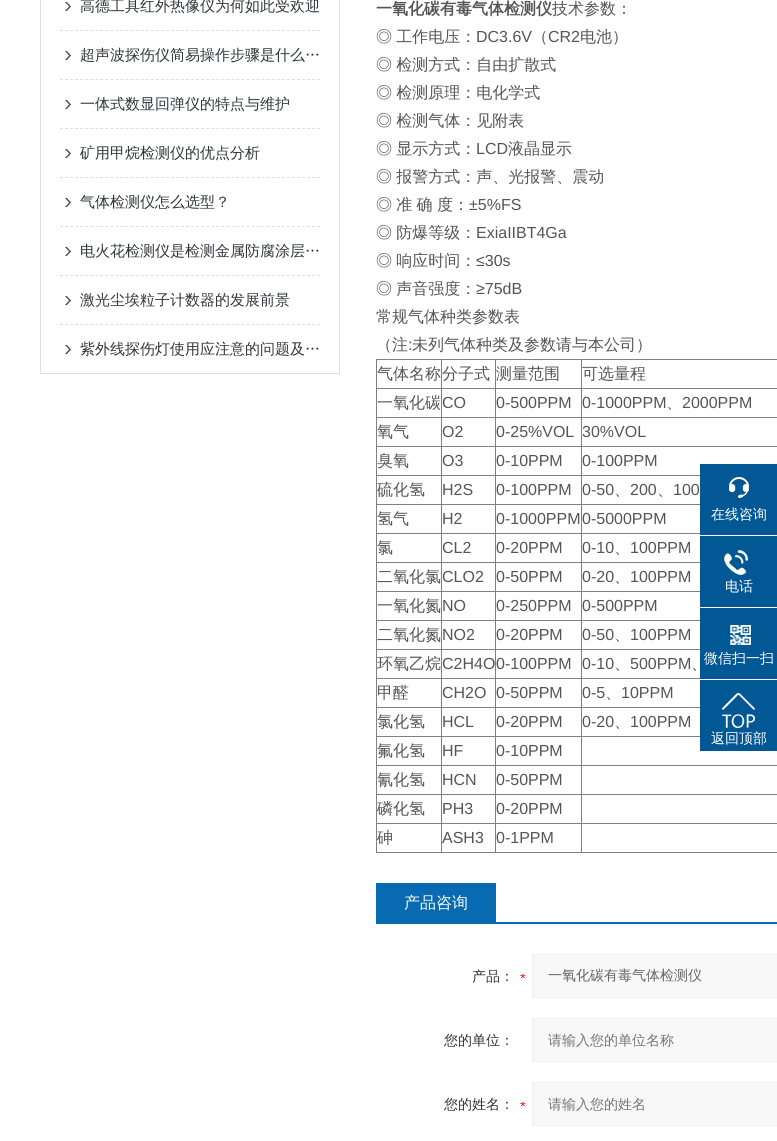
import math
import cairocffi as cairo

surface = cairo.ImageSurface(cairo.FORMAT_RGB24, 777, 1141)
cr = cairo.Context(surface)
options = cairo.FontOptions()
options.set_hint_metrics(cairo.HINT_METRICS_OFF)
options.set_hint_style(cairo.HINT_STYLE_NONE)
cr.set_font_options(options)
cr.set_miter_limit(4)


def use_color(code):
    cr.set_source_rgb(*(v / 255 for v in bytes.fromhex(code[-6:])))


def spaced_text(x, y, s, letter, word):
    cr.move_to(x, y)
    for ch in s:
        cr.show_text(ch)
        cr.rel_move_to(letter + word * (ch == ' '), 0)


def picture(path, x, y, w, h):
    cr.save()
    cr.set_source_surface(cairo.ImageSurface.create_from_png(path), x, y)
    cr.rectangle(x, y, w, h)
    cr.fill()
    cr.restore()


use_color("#ffffff")
cr.paint()
use_color("#dfdfdf")
cr.rectangle(339, 0, 1, 374)
cr.fill()
cr.rectangle(40, 373, 300, 1)
cr.fill()
cr.rectangle(40, 0, 1, 374)
cr.fill()
cr.new_path()
cr.move_to(60, 30.5)
cr.line_to(320, 30.5)
cr.set_line_width(1)
cr.set_dash([3, 2.04])
cr.stroke()
picture("img1.png", 65, 2, 6, 9)
cr.select_font_face("WenQuanYi Zen Hei Medium")
cr.set_font_size(15)
use_color("#32353a")
cr.move_to(80, 11)
cr.show_text("高德工具红外热像仪为何如此受欢迎")
cr.new_path()
cr.move_to(60, 79.5)
cr.line_to(320, 79.5)
use_color("#dfdfdf")
cr.stroke()
picture("img1.png", 65, 51, 6, 9)
use_color("#32353a")
cr.move_to(80, 60)
cr.show_text("超声波探伤仪简易操作步骤是什么…")
cr.new_path()
cr.move_to(60, 128.5)
cr.line_to(320, 128.5)
use_color("#dfdfdf")
cr.stroke()
picture("img1.png", 65, 100, 6, 9)
use_color("#32353a")
cr.move_to(80, 109)
cr.show_text("一体式数显回弹仪的特点与维护")
cr.new_path()
cr.move_to(60, 177.5)
cr.line_to(320, 177.5)
use_color("#dfdfdf")
cr.stroke()
picture("img1.png", 65, 149, 6, 9)
use_color("#32353a")
cr.move_to(80, 158)
cr.show_text("矿用甲烷检测仪的优点分析")
cr.new_path()
cr.move_to(60, 226.5)
cr.line_to(320, 226.5)
use_color("#dfdfdf")
cr.stroke()
picture("img1.png", 65, 198, 6, 9)
use_color("#32353a")
cr.move_to(80, 207)
cr.show_text("气体检测仪怎么选型？")
cr.new_path()
cr.move_to(60, 275.5)
cr.line_to(320, 275.5)
use_color("#dfdfdf")
cr.stroke()
picture("img1.png", 65, 247, 6, 9)
use_color("#32353a")
cr.move_to(80, 256)
cr.show_text("电火花检测仪是检测金属防腐涂层…")
cr.new_path()
cr.move_to(60, 324.5)
cr.line_to(320, 324.5)
use_color("#dfdfdf")
cr.stroke()
picture("img1.png", 65, 296, 6, 9)
use_color("#32353a")
cr.move_to(80, 305)
cr.show_text("激光尘埃粒子计数器的发展前景")
picture("img1.png", 65, 345, 6, 9)
cr.move_to(80, 354)
cr.show_text("紫外线探伤灯使用应注意的问题及…")
cr.select_font_face("WenQuanYi Zen Hei", cairo.FONT_SLANT_NORMAL, cairo.FONT_WEIGHT_BOLD)
cr.set_font_size(16)
use_color("#555555")
cr.move_to(376, 14)
cr.show_text("一氧化碳有毒气体检测仪")
cr.select_font_face("WenQuanYi Zen Hei Medium")
cr.move_to(552, 14)
cr.show_text("技术参数：")
spaced_text(376, 42, "◎ 工作电压：", 0, -0.5)
cr.select_font_face("Liberation Sans")
cr.move_to(476, 42)
cr.show_text("DC3.6V")
cr.select_font_face("WenQuanYi Zen Hei Medium")
cr.move_to(532, 42)
cr.show_text("（")
cr.select_font_face("Liberation Sans")
cr.move_to(548, 42)
cr.show_text("CR2")
cr.select_font_face("WenQuanYi Zen Hei Medium")
cr.move_to(580, 42)
cr.show_text("电池）")
spaced_text(376, 70, "◎ 检测方式：自由扩散式", 0, -0.5)
spaced_text(376, 98, "◎ 检测原理：电化学式", 0, -0.5)
spaced_text(376, 126, "◎ 检测气体：见附表", 0, -0.5)
spaced_text(376, 154, "◎ 显示方式：", 0, -0.5)
cr.select_font_face("Liberation Sans")
cr.move_to(476, 154)
cr.show_text("LCD")
cr.select_font_face("WenQuanYi Zen Hei Medium")
cr.move_to(508, 154)
cr.show_text("液晶显示")
spaced_text(376, 182, "◎ 报警方式：声、光报警、震动", 0, -0.5)
spaced_text(376, 210, "◎ 准 确 度：", 0, -0.5)
cr.select_font_face("Liberation Sans")
cr.move_to(469, 210)
cr.show_text("±5%FS")
cr.select_font_face("WenQuanYi Zen Hei Medium")
spaced_text(376, 238, "◎ 防爆等级：", 0, -0.5)
cr.select_font_face("Liberation Sans")
cr.move_to(476, 238)
cr.show_text("ExiaIIBT4Ga")
cr.select_font_face("WenQuanYi Zen Hei Medium")
spaced_text(376, 266, "◎ 响应时间：", 0, -0.5)
cr.select_font_face("Liberation Sans")
cr.move_to(476, 266)
cr.show_text("≤30s")
cr.select_font_face("WenQuanYi Zen Hei Medium")
spaced_text(376, 294, "◎ 声音强度：", 0, -0.5)
cr.select_font_face("Liberation Sans")
cr.move_to(476, 294)
cr.show_text("≥75dB")
cr.select_font_face("WenQuanYi Zen Hei Medium")
cr.move_to(376, 322)
cr.show_text("常规气体种类参数表")
cr.move_to(376, 350)
cr.show_text("（注")
cr.select_font_face("Liberation Sans")
cr.move_to(408, 350)
cr.show_text(":")
cr.select_font_face("WenQuanYi Zen Hei Medium")
cr.move_to(412, 350)
cr.show_text("未列气体种类及参数请与本公司）")
use_color("#808080")
cr.rectangle(376, 359, 401, 1)
cr.fill()
cr.rectangle(376, 852, 401, 1)
cr.fill()
cr.rectangle(376, 359, 1, 494)
cr.fill()
use_color("#555555")
cr.move_to(377, 379)
cr.show_text("气体名称")
use_color("#808080")
cr.rectangle(581, 388, 196, 1)
cr.fill()
cr.rectangle(581, 417, 196, 1)
cr.fill()
cr.rectangle(581, 446, 196, 1)
cr.fill()
cr.rectangle(581, 475, 119, 1)
cr.fill()
cr.rectangle(581, 504, 119, 1)
cr.fill()
cr.rectangle(581, 533, 119, 1)
cr.fill()
cr.rectangle(581, 562, 119, 1)
cr.fill()
cr.rectangle(581, 591, 119, 1)
cr.fill()
cr.rectangle(581, 620, 119, 1)
cr.fill()
cr.rectangle(581, 649, 119, 1)
cr.fill()
cr.rectangle(581, 678, 119, 1)
cr.fill()
cr.rectangle(581, 707, 119, 1)
cr.fill()
cr.rectangle(581, 736, 119, 1)
cr.fill()
cr.rectangle(581, 765, 196, 1)
cr.fill()
cr.rectangle(581, 794, 196, 1)
cr.fill()
cr.rectangle(581, 823, 196, 1)
cr.fill()
cr.rectangle(581, 823, 1, 30)
cr.fill()
cr.rectangle(495, 823, 87, 1)
cr.fill()
cr.rectangle(581, 794, 1, 30)
cr.fill()
cr.rectangle(495, 794, 87, 1)
cr.fill()
cr.rectangle(581, 765, 1, 30)
cr.fill()
cr.rectangle(495, 765, 87, 1)
cr.fill()
cr.rectangle(581, 736, 1, 30)
cr.fill()
cr.rectangle(495, 736, 87, 1)
cr.fill()
cr.rectangle(581, 707, 1, 30)
cr.fill()
cr.rectangle(495, 707, 87, 1)
cr.fill()
cr.rectangle(581, 678, 1, 30)
cr.fill()
cr.rectangle(495, 678, 87, 1)
cr.fill()
cr.rectangle(581, 649, 1, 30)
cr.fill()
cr.rectangle(495, 649, 87, 1)
cr.fill()
cr.rectangle(581, 620, 1, 30)
cr.fill()
cr.rectangle(495, 620, 87, 1)
cr.fill()
cr.rectangle(581, 591, 1, 30)
cr.fill()
cr.rectangle(495, 591, 87, 1)
cr.fill()
cr.rectangle(581, 562, 1, 30)
cr.fill()
cr.rectangle(495, 562, 87, 1)
cr.fill()
cr.rectangle(581, 533, 1, 30)
cr.fill()
cr.rectangle(495, 533, 87, 1)
cr.fill()
cr.rectangle(581, 504, 1, 30)
cr.fill()
cr.rectangle(495, 504, 87, 1)
cr.fill()
cr.rectangle(581, 475, 1, 30)
cr.fill()
cr.rectangle(495, 475, 87, 1)
cr.fill()
cr.rectangle(581, 446, 1, 30)
cr.fill()
cr.rectangle(495, 446, 87, 1)
cr.fill()
cr.rectangle(581, 417, 1, 30)
cr.fill()
cr.rectangle(495, 417, 87, 1)
cr.fill()
cr.rectangle(581, 388, 1, 30)
cr.fill()
cr.rectangle(495, 388, 87, 1)
cr.fill()
cr.rectangle(495, 823, 1, 30)
cr.fill()
cr.rectangle(441, 823, 55, 1)
cr.fill()
cr.rectangle(495, 794, 1, 30)
cr.fill()
cr.rectangle(441, 794, 55, 1)
cr.fill()
cr.rectangle(495, 765, 1, 30)
cr.fill()
cr.rectangle(441, 765, 55, 1)
cr.fill()
cr.rectangle(495, 736, 1, 30)
cr.fill()
cr.rectangle(441, 736, 55, 1)
cr.fill()
cr.rectangle(495, 707, 1, 30)
cr.fill()
cr.rectangle(441, 707, 55, 1)
cr.fill()
cr.rectangle(495, 678, 1, 30)
cr.fill()
cr.rectangle(441, 678, 55, 1)
cr.fill()
cr.rectangle(495, 649, 1, 30)
cr.fill()
cr.rectangle(441, 649, 55, 1)
cr.fill()
cr.rectangle(495, 620, 1, 30)
cr.fill()
cr.rectangle(441, 620, 55, 1)
cr.fill()
cr.rectangle(495, 591, 1, 30)
cr.fill()
cr.rectangle(441, 591, 55, 1)
cr.fill()
cr.rectangle(495, 562, 1, 30)
cr.fill()
cr.rectangle(441, 562, 55, 1)
cr.fill()
cr.rectangle(495, 533, 1, 30)
cr.fill()
cr.rectangle(441, 533, 55, 1)
cr.fill()
cr.rectangle(495, 504, 1, 30)
cr.fill()
cr.rectangle(441, 504, 55, 1)
cr.fill()
cr.rectangle(495, 475, 1, 30)
cr.fill()
cr.rectangle(441, 475, 55, 1)
cr.fill()
cr.rectangle(495, 446, 1, 30)
cr.fill()
cr.rectangle(441, 446, 55, 1)
cr.fill()
cr.rectangle(495, 417, 1, 30)
cr.fill()
cr.rectangle(441, 417, 55, 1)
cr.fill()
cr.rectangle(495, 388, 1, 30)
cr.fill()
cr.rectangle(441, 388, 55, 1)
cr.fill()
cr.rectangle(441, 823, 1, 30)
cr.fill()
cr.rectangle(376, 823, 66, 1)
cr.fill()
cr.rectangle(441, 794, 1, 30)
cr.fill()
cr.rectangle(376, 794, 66, 1)
cr.fill()
cr.rectangle(441, 765, 1, 30)
cr.fill()
cr.rectangle(376, 765, 66, 1)
cr.fill()
cr.rectangle(441, 736, 1, 30)
cr.fill()
cr.rectangle(376, 736, 66, 1)
cr.fill()
cr.rectangle(441, 707, 1, 30)
cr.fill()
cr.rectangle(376, 707, 66, 1)
cr.fill()
cr.rectangle(441, 678, 1, 30)
cr.fill()
cr.rectangle(376, 678, 66, 1)
cr.fill()
cr.rectangle(441, 649, 1, 30)
cr.fill()
cr.rectangle(376, 649, 66, 1)
cr.fill()
cr.rectangle(441, 620, 1, 30)
cr.fill()
cr.rectangle(376, 620, 66, 1)
cr.fill()
cr.rectangle(441, 591, 1, 30)
cr.fill()
cr.rectangle(376, 591, 66, 1)
cr.fill()
cr.rectangle(441, 562, 1, 30)
cr.fill()
cr.rectangle(376, 562, 66, 1)
cr.fill()
cr.rectangle(441, 533, 1, 30)
cr.fill()
cr.rectangle(376, 533, 66, 1)
cr.fill()
cr.rectangle(441, 504, 1, 30)
cr.fill()
cr.rectangle(376, 504, 66, 1)
cr.fill()
cr.rectangle(441, 475, 1, 30)
cr.fill()
cr.rectangle(376, 475, 66, 1)
cr.fill()
cr.rectangle(441, 446, 1, 30)
cr.fill()
cr.rectangle(376, 446, 66, 1)
cr.fill()
cr.rectangle(441, 417, 1, 30)
cr.fill()
cr.rectangle(376, 417, 66, 1)
cr.fill()
cr.rectangle(441, 388, 1, 30)
cr.fill()
cr.rectangle(376, 388, 66, 1)
cr.fill()
cr.rectangle(441, 359, 1, 30)
cr.fill()
use_color("#555555")
cr.move_to(442, 379)
cr.show_text("分子式")
use_color("#808080")
cr.rectangle(495, 359, 1, 30)
cr.fill()
use_color("#555555")
cr.move_to(496, 379)
cr.show_text("测量范围")
use_color("#808080")
cr.rectangle(581, 359, 1, 30)
cr.fill()
use_color("#555555")
cr.move_to(582, 379)
cr.show_text("可选量程")
cr.move_to(377, 408)
cr.show_text("一氧化碳")
cr.select_font_face("Liberation Sans")
cr.move_to(442, 408)
cr.show_text("CO")
cr.move_to(496, 408)
cr.show_text("0-500PPM")
cr.move_to(582, 408)
cr.show_text("0-1000PPM")
cr.select_font_face("WenQuanYi Zen Hei Medium")
cr.move_to(666, 408)
cr.show_text("、")
cr.select_font_face("Liberation Sans")
cr.move_to(682, 408)
cr.show_text("2000PPM")
cr.select_font_face("WenQuanYi Zen Hei Medium")
cr.move_to(377, 437)
cr.show_text("氧气")
cr.select_font_face("Liberation Sans")
cr.move_to(442, 437)
cr.show_text("O2")
cr.move_to(496, 437)
cr.show_text("0-25%VOL")
cr.move_to(582, 437)
cr.show_text("30%VOL")
cr.select_font_face("WenQuanYi Zen Hei Medium")
cr.move_to(377, 466)
cr.show_text("臭氧")
cr.select_font_face("Liberation Sans")
cr.move_to(442, 466)
cr.show_text("O3")
cr.move_to(496, 466)
cr.show_text("0-10PPM")
cr.move_to(582, 466)
cr.show_text("0-100PPM")
cr.select_font_face("WenQuanYi Zen Hei Medium")
cr.move_to(377, 495)
cr.show_text("硫化氢")
cr.select_font_face("Liberation Sans")
cr.move_to(442, 495)
cr.show_text("H2S")
cr.move_to(496, 495)
cr.show_text("0-100PPM")
cr.move_to(582, 495)
cr.show_text("0-50")
cr.select_font_face("WenQuanYi Zen Hei Medium")
cr.move_to(614, 495)
cr.show_text("、")
cr.select_font_face("Liberation Sans")
cr.move_to(630, 495)
cr.show_text("200")
cr.select_font_face("WenQuanYi Zen Hei Medium")
cr.move_to(657, 495)
cr.show_text("、")
cr.select_font_face("Liberation Sans")
cr.move_to(673, 495)
cr.show_text("100")
cr.select_font_face("WenQuanYi Zen Hei Medium")
cr.move_to(377, 524)
cr.show_text("氢气")
cr.select_font_face("Liberation Sans")
cr.move_to(442, 524)
cr.show_text("H2")
cr.move_to(496, 524)
cr.show_text("0-1000PPM")
cr.move_to(582, 524)
cr.show_text("0-5000PPM")
cr.select_font_face("WenQuanYi Zen Hei Medium")
cr.move_to(377, 553)
cr.show_text("氯")
cr.select_font_face("Liberation Sans")
cr.move_to(442, 553)
cr.show_text("CL2")
cr.move_to(496, 553)
cr.show_text("0-20PPM")
cr.move_to(582, 553)
cr.show_text("0-10")
cr.select_font_face("WenQuanYi Zen Hei Medium")
cr.move_to(614, 553)
cr.show_text("、")
cr.select_font_face("Liberation Sans")
cr.move_to(630, 553)
cr.show_text("100PPM")
cr.select_font_face("WenQuanYi Zen Hei Medium")
cr.move_to(377, 582)
cr.show_text("二氧化氯")
cr.select_font_face("Liberation Sans")
cr.move_to(442, 582)
cr.show_text("CLO2")
cr.move_to(496, 582)
cr.show_text("0-50PPM")
cr.move_to(582, 582)
cr.show_text("0-20")
cr.select_font_face("WenQuanYi Zen Hei Medium")
cr.move_to(614, 582)
cr.show_text("、")
cr.select_font_face("Liberation Sans")
cr.move_to(630, 582)
cr.show_text("100PPM")
cr.select_font_face("WenQuanYi Zen Hei Medium")
cr.move_to(377, 611)
cr.show_text("一氧化氮")
cr.select_font_face("Liberation Sans")
cr.move_to(442, 611)
cr.show_text("NO")
cr.move_to(496, 611)
cr.show_text("0-250PPM")
cr.move_to(582, 611)
cr.show_text("0-500PPM")
cr.select_font_face("WenQuanYi Zen Hei Medium")
cr.move_to(377, 640)
cr.show_text("二氧化氮")
cr.select_font_face("Liberation Sans")
cr.move_to(442, 640)
cr.show_text("NO2")
cr.move_to(496, 640)
cr.show_text("0-20PPM")
cr.move_to(582, 640)
cr.show_text("0-50")
cr.select_font_face("WenQuanYi Zen Hei Medium")
cr.move_to(614, 640)
cr.show_text("、")
cr.select_font_face("Liberation Sans")
cr.move_to(630, 640)
cr.show_text("100PPM")
cr.select_font_face("WenQuanYi Zen Hei Medium")
cr.move_to(377, 669)
cr.show_text("环氧乙烷")
cr.select_font_face("Liberation Sans")
cr.move_to(442, 669)
cr.show_text("C2H4O")
cr.move_to(496, 669)
cr.show_text("0-100PPM")
cr.move_to(582, 669)
cr.show_text("0-10")
cr.select_font_face("WenQuanYi Zen Hei Medium")
cr.move_to(614, 669)
cr.show_text("、")
cr.select_font_face("Liberation Sans")
cr.move_to(630, 669)
cr.show_text("500PPM")
cr.select_font_face("WenQuanYi Zen Hei Medium")
cr.move_to(691, 669)
cr.show_text("、")
cr.move_to(377, 698)
cr.show_text("甲醛")
cr.select_font_face("Liberation Sans")
cr.move_to(442, 698)
cr.show_text("CH2O")
cr.move_to(496, 698)
cr.show_text("0-50PPM")
cr.move_to(582, 698)
cr.show_text("0-5")
cr.select_font_face("WenQuanYi Zen Hei Medium")
cr.move_to(605, 698)
cr.show_text("、")
cr.select_font_face("Liberation Sans")
cr.move_to(621, 698)
cr.show_text("10PPM")
cr.select_font_face("WenQuanYi Zen Hei Medium")
cr.move_to(377, 727)
cr.show_text("氯化氢")
cr.select_font_face("Liberation Sans")
cr.move_to(442, 727)
cr.show_text("HCL")
cr.move_to(496, 727)
cr.show_text("0-20PPM")
cr.move_to(582, 727)
cr.show_text("0-20")
cr.select_font_face("WenQuanYi Zen Hei Medium")
cr.move_to(614, 727)
cr.show_text("、")
cr.select_font_face("Liberation Sans")
cr.move_to(630, 727)
cr.show_text("100PPM")
cr.select_font_face("WenQuanYi Zen Hei Medium")
cr.move_to(377, 756)
cr.show_text("氟化氢")
cr.select_font_face("Liberation Sans")
cr.move_to(442, 756)
cr.show_text("HF")
cr.move_to(496, 756)
cr.show_text("0-10PPM")
cr.select_font_face("WenQuanYi Zen Hei Medium")
cr.move_to(377, 785)
cr.show_text("氰化氢")
cr.select_font_face("Liberation Sans")
cr.move_to(442, 785)
cr.show_text("HCN")
cr.move_to(496, 785)
cr.show_text("0-50PPM")
cr.select_font_face("WenQuanYi Zen Hei Medium")
cr.move_to(377, 814)
cr.show_text("磷化氢")
cr.select_font_face("Liberation Sans")
cr.move_to(442, 814)
cr.show_text("PH3")
cr.move_to(496, 814)
cr.show_text("0-20PPM")
cr.select_font_face("WenQuanYi Zen Hei Medium")
cr.move_to(377, 843)
cr.show_text("砷")
cr.select_font_face("Liberation Sans")
cr.move_to(442, 843)
cr.show_text("ASH3")
cr.move_to(496, 843)
cr.show_text("0-1PPM")
use_color("#086ab1")
cr.rectangle(376, 922, 401, 2)
cr.fill()
cr.rectangle(376, 883, 120, 39)
cr.fill()
cr.select_font_face("WenQuanYi Zen Hei Medium")
use_color("#ffffff")
cr.move_to(404, 908)
cr.show_text("产品咨询")
picture("img2.png", 520, 974, 5, 4)
cr.set_font_size(14)
use_color("#333333")
cr.move_to(472, 981)
cr.show_text("产品：")
use_color("#f8f8f8")
cr.rectangle(532.5, 954.5, 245, 43)
cr.fill_preserve()
use_color("#f1f1f1")
cr.set_dash([])
cr.stroke()
use_color("#666666")
cr.move_to(548, 980)
cr.show_text("一氧化碳有毒气体检测仪")
use_color("#333333")
cr.move_to(444, 1045)
cr.show_text("您的单位：")
use_color("#f8f8f8")
cr.rectangle(532.5, 1018.5, 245, 43)
cr.fill_preserve()
use_color("#f1f1f1")
cr.stroke()
use_color("#757575")
cr.move_to(548, 1045)
cr.show_text("请输入您的单位名称")
picture("img2.png", 520, 1102, 5, 4)
use_color("#333333")
cr.move_to(444, 1109)
cr.show_text("您的姓名：")
use_color("#f8f8f8")
cr.rectangle(532.5, 1082.5, 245, 43)
cr.fill_preserve()
use_color("#f1f1f1")
cr.stroke()
use_color("#757575")
cr.move_to(548, 1109)
cr.show_text("请输入您的姓名")
use_color("#025795")
cr.rectangle(700, 464, 77, 71)
cr.fill()
picture("img3.png", 729, 477, 20, 21)
use_color("#ffffff")
cr.move_to(711, 519)
cr.show_text("在线咨询")
use_color("#025795")
cr.rectangle(700, 536, 77, 71)
cr.fill()
picture("img4.png", 724, 550, 24, 25)
use_color("#ffffff")
cr.move_to(725, 591)
cr.show_text("电话")
use_color("#025795")
cr.rectangle(700, 608, 77, 71)
cr.fill()
picture("img5.png", 730, 625, 21, 20)
use_color("#ffffff")
cr.move_to(704, 663)
cr.show_text("微信扫一扫")
use_color("#025795")
cr.rectangle(700, 680, 77, 71)
cr.fill()
picture("img6.png", 722, 693, 33, 35)
use_color("#ffffff")
cr.move_to(711, 743)
cr.show_text("返回顶部")
surface.write_to_png("result.png")
